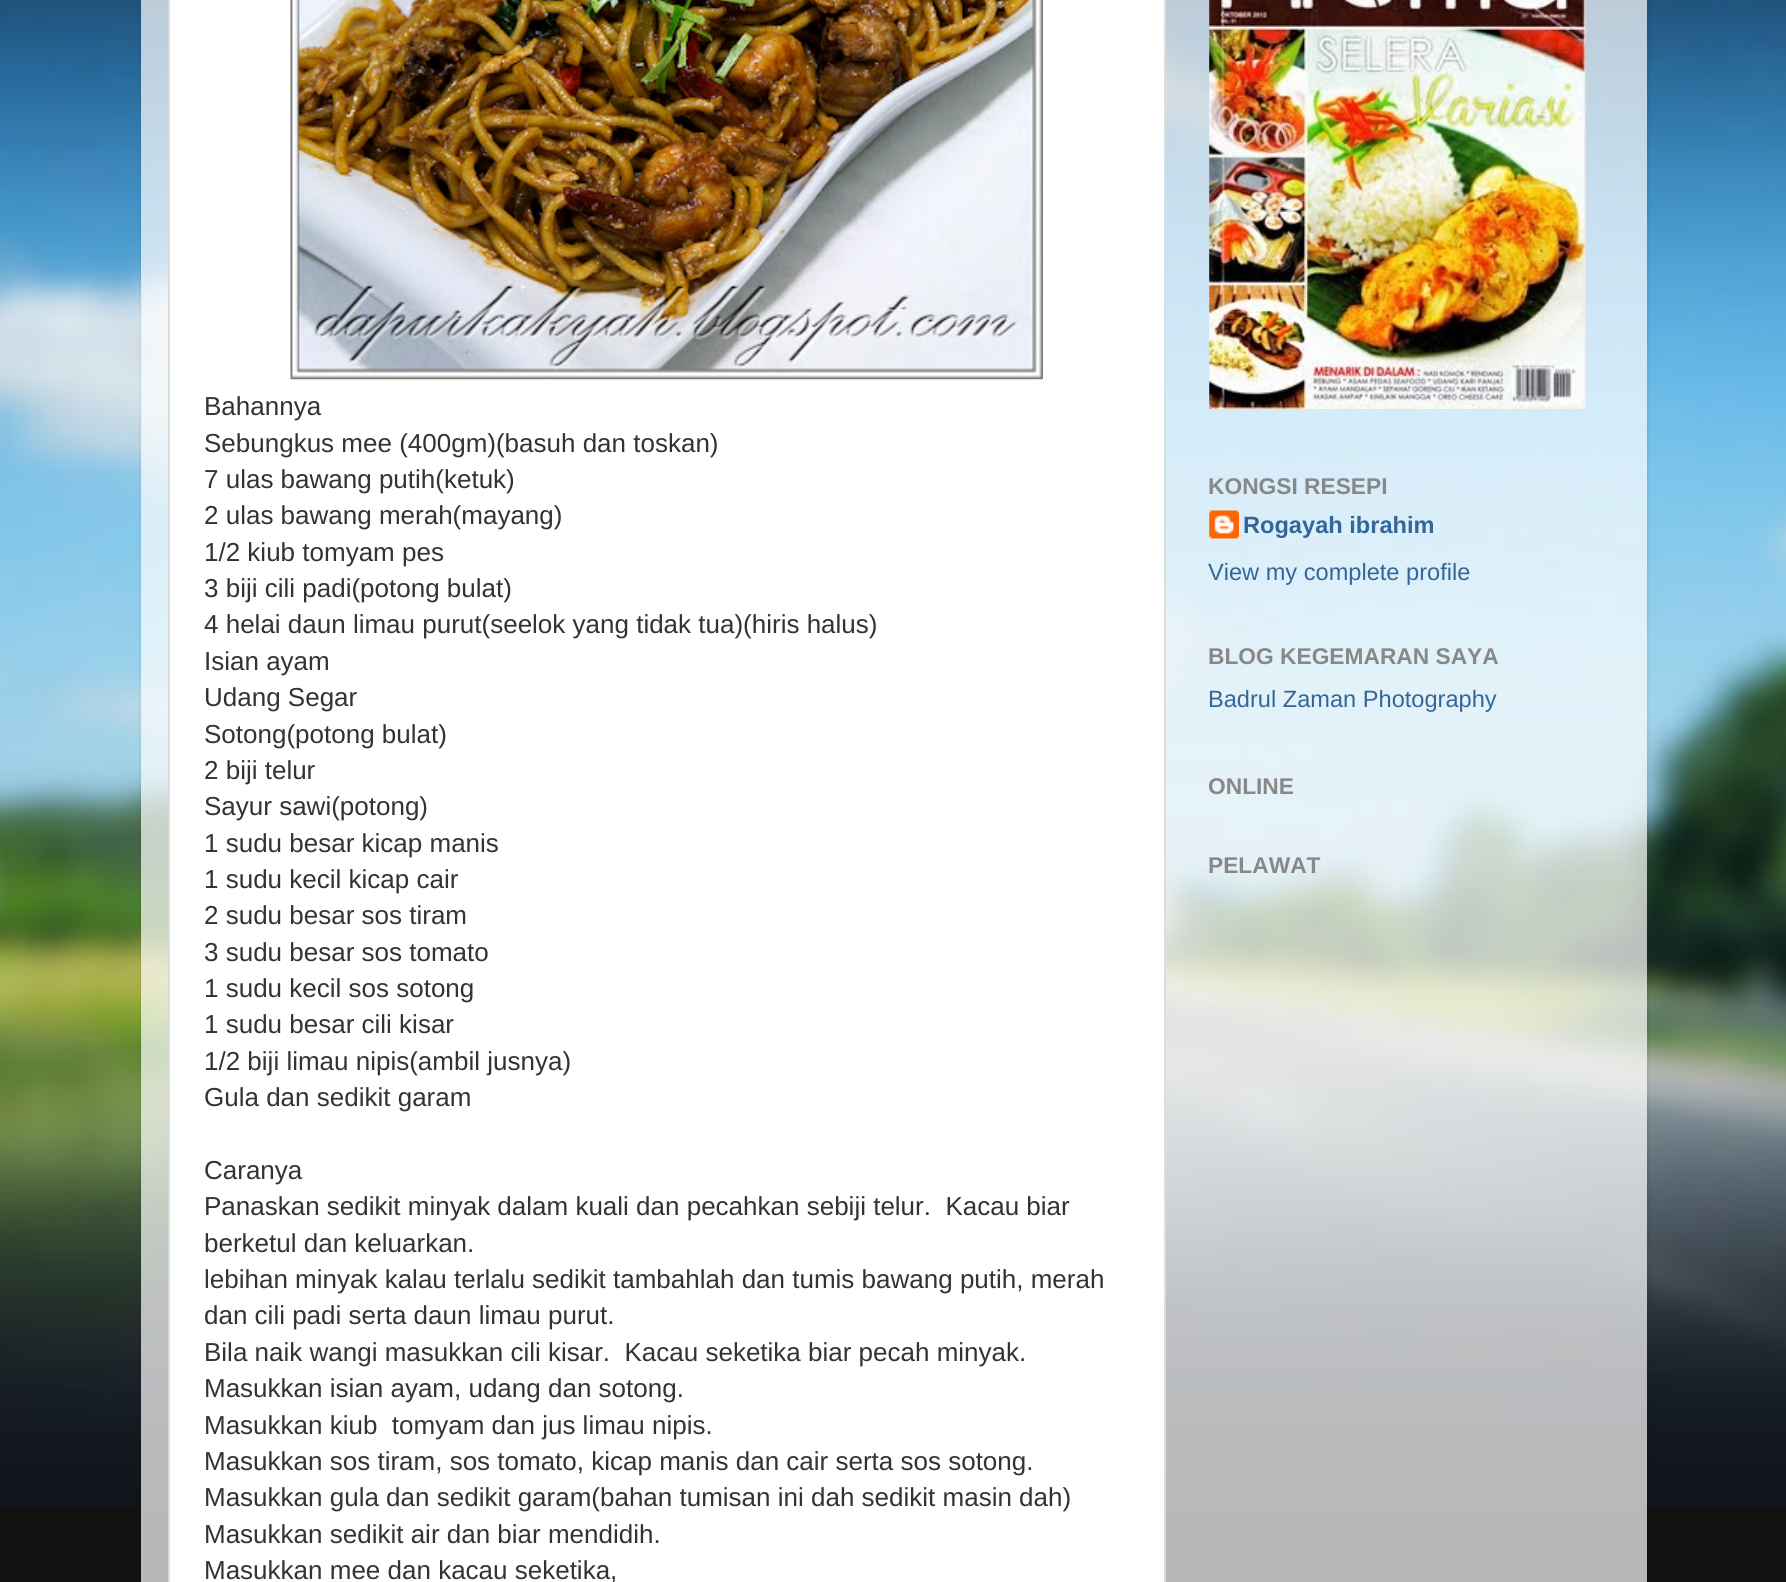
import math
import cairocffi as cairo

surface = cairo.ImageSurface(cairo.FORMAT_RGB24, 1786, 1582)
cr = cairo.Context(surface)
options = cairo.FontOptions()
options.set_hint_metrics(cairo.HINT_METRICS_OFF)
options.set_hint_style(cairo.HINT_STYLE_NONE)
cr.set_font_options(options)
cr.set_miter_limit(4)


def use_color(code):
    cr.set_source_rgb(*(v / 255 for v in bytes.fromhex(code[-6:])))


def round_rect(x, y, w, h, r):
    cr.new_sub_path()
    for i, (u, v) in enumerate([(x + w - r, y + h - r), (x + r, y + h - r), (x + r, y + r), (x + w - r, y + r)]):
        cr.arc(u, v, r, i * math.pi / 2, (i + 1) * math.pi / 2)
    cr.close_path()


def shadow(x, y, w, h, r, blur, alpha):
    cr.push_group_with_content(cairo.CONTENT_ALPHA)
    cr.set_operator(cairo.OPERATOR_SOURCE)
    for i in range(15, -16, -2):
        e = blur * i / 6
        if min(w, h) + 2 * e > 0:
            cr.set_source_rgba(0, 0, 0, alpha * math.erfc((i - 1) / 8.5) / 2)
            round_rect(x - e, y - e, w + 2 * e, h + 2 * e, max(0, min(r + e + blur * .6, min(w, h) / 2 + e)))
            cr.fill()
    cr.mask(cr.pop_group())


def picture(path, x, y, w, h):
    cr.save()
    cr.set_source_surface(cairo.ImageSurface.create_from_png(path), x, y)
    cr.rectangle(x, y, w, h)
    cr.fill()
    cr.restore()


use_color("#111111")
cr.paint()
picture("img1.png", 0, 0, 1786, 1509)
cr.save()
cr.set_fill_rule(cairo.FILL_RULE_EVEN_ODD)
cr.new_path()
cr.move_to(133, 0)
cr.line_to(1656, 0)
cr.line_to(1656, 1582)
cr.line_to(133, 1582)
cr.close_path()
cr.move_to(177, -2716)
cr.line_to(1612, -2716)
cr.curve_to(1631.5, -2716, 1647, -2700.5, 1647, -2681)
cr.line_to(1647, 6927)
cr.line_to(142, 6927)
cr.line_to(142, -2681)
cr.curve_to(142, -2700.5, 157.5, -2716, 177, -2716)
cr.close_path()
cr.clip()
use_color("#000000")
shadow(142, -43, 1505, 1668, 35, 2.5, 0.15)
cr.restore()
cr.set_source_rgba(1, 1, 1, 0.7)
cr.rectangle(141, 0, 1506, 1582)
cr.fill()
use_color("#ffffff")
cr.rectangle(169, -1, 996, 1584)
cr.fill_preserve()
use_color("#dddddd")
cr.stroke()
picture("img2.png", 290, 0, 753, 380)
cr.select_font_face("Liberation Sans")
cr.set_font_size(26)
use_color("#333333")
cr.move_to(204, 415)
cr.show_text("Bahannya")
cr.move_to(204, 452)
cr.show_text("Sebungkus mee (400gm)(basuh dan toskan)")
cr.move_to(204, 488)
cr.show_text("7 ulas bawang putih(ketuk)")
cr.move_to(204, 524)
cr.show_text("2 ulas bawang merah(mayang)")
cr.move_to(204, 561)
cr.show_text("1/2 kiub tomyam pes")
cr.move_to(204, 597)
cr.show_text("3 biji cili padi(potong bulat)")
cr.move_to(204, 633)
cr.show_text("4 helai daun limau purut(seelok yang tidak tua)(hiris halus)")
cr.move_to(204, 670)
cr.show_text("Isian ayam")
cr.move_to(204, 706)
cr.show_text("Udang Segar")
cr.move_to(204, 743)
cr.show_text("Sotong(potong bulat)")
cr.move_to(204, 779)
cr.show_text("2 biji telur")
cr.move_to(204, 815)
cr.show_text("Sayur sawi(potong)")
cr.move_to(204, 852)
cr.show_text("1 sudu besar kicap manis")
cr.move_to(204, 888)
cr.show_text("1 sudu kecil kicap cair")
cr.move_to(204, 924)
cr.show_text("2 sudu besar sos tiram")
cr.move_to(204, 961)
cr.show_text("3 sudu besar sos tomato")
cr.move_to(204, 997)
cr.show_text("1 sudu kecil sos sotong")
cr.move_to(204, 1033)
cr.show_text("1 sudu besar cili kisar")
cr.move_to(204, 1070)
cr.show_text("1/2 biji limau nipis(ambil jusnya)")
cr.move_to(204, 1106)
cr.show_text("Gula dan sedikit garam")
cr.move_to(204, 1179)
cr.show_text("Caranya")
cr.move_to(204, 1215)
cr.show_text("Panaskan sedikit minyak dalam kuali dan pecahkan sebiji telur.  Kacau biar")
cr.move_to(204, 1252)
cr.show_text("berketul dan keluarkan.")
cr.move_to(204, 1288)
cr.show_text("lebihan minyak kalau terlalu sedikit tambahlah dan tumis bawang putih, merah")
cr.move_to(204, 1324)
cr.show_text("dan cili padi serta daun limau purut.")
cr.move_to(204, 1361)
cr.show_text("Bila naik wangi masukkan cili kisar.  Kacau seketika biar pecah minyak.")
cr.move_to(204, 1397)
cr.show_text("Masukkan isian ayam, udang dan sotong.")
cr.move_to(204, 1434)
cr.show_text("Masukkan kiub  tomyam dan jus limau nipis.")
cr.move_to(204, 1470)
cr.show_text("Masukkan sos tiram, sos tomato, kicap manis dan cair serta sos sotong.")
cr.move_to(204, 1506)
cr.show_text("Masukkan gula dan sedikit garam(bahan tumisan ini dah sedikit masin dah)")
cr.move_to(204, 1543)
cr.show_text("Masukkan sedikit air dan biar mendidih.")
cr.move_to(204, 1579)
cr.show_text("Masukkan mee dan kacau seketika,")
picture("img3.png", 1209, 0, 377, 409)
cr.select_font_face("Liberation Sans", cairo.FONT_SLANT_NORMAL, cairo.FONT_WEIGHT_BOLD)
cr.set_font_size(22.75)
use_color("#888888")
cr.move_to(1208, 494)
cr.show_text("KONGSI RESEPI")
picture("img4.png", 1209, 510, 30, 29)
cr.set_font_size(23.6)
use_color("#336699")
cr.move_to(1243, 533)
cr.show_text("Rogayah ibrahim")
cr.select_font_face("Liberation Sans")
cr.move_to(1208, 580)
cr.show_text("View my complete profile")
cr.select_font_face("Liberation Sans", cairo.FONT_SLANT_NORMAL, cairo.FONT_WEIGHT_BOLD)
cr.set_font_size(22.75)
use_color("#888888")
cr.move_to(1208, 664)
cr.show_text("BLOG KEGEMARAN SAYA")
cr.select_font_face("Liberation Sans")
cr.set_font_size(23.6)
use_color("#336699")
cr.move_to(1208, 707)
cr.show_text("Badrul Zaman Photography")
cr.select_font_face("Liberation Sans", cairo.FONT_SLANT_NORMAL, cairo.FONT_WEIGHT_BOLD)
cr.set_font_size(22.75)
use_color("#888888")
cr.move_to(1208, 794)
cr.show_text("ONLINE")
cr.move_to(1208, 873)
cr.show_text("PELAWAT")
surface.write_to_png("result.png")
